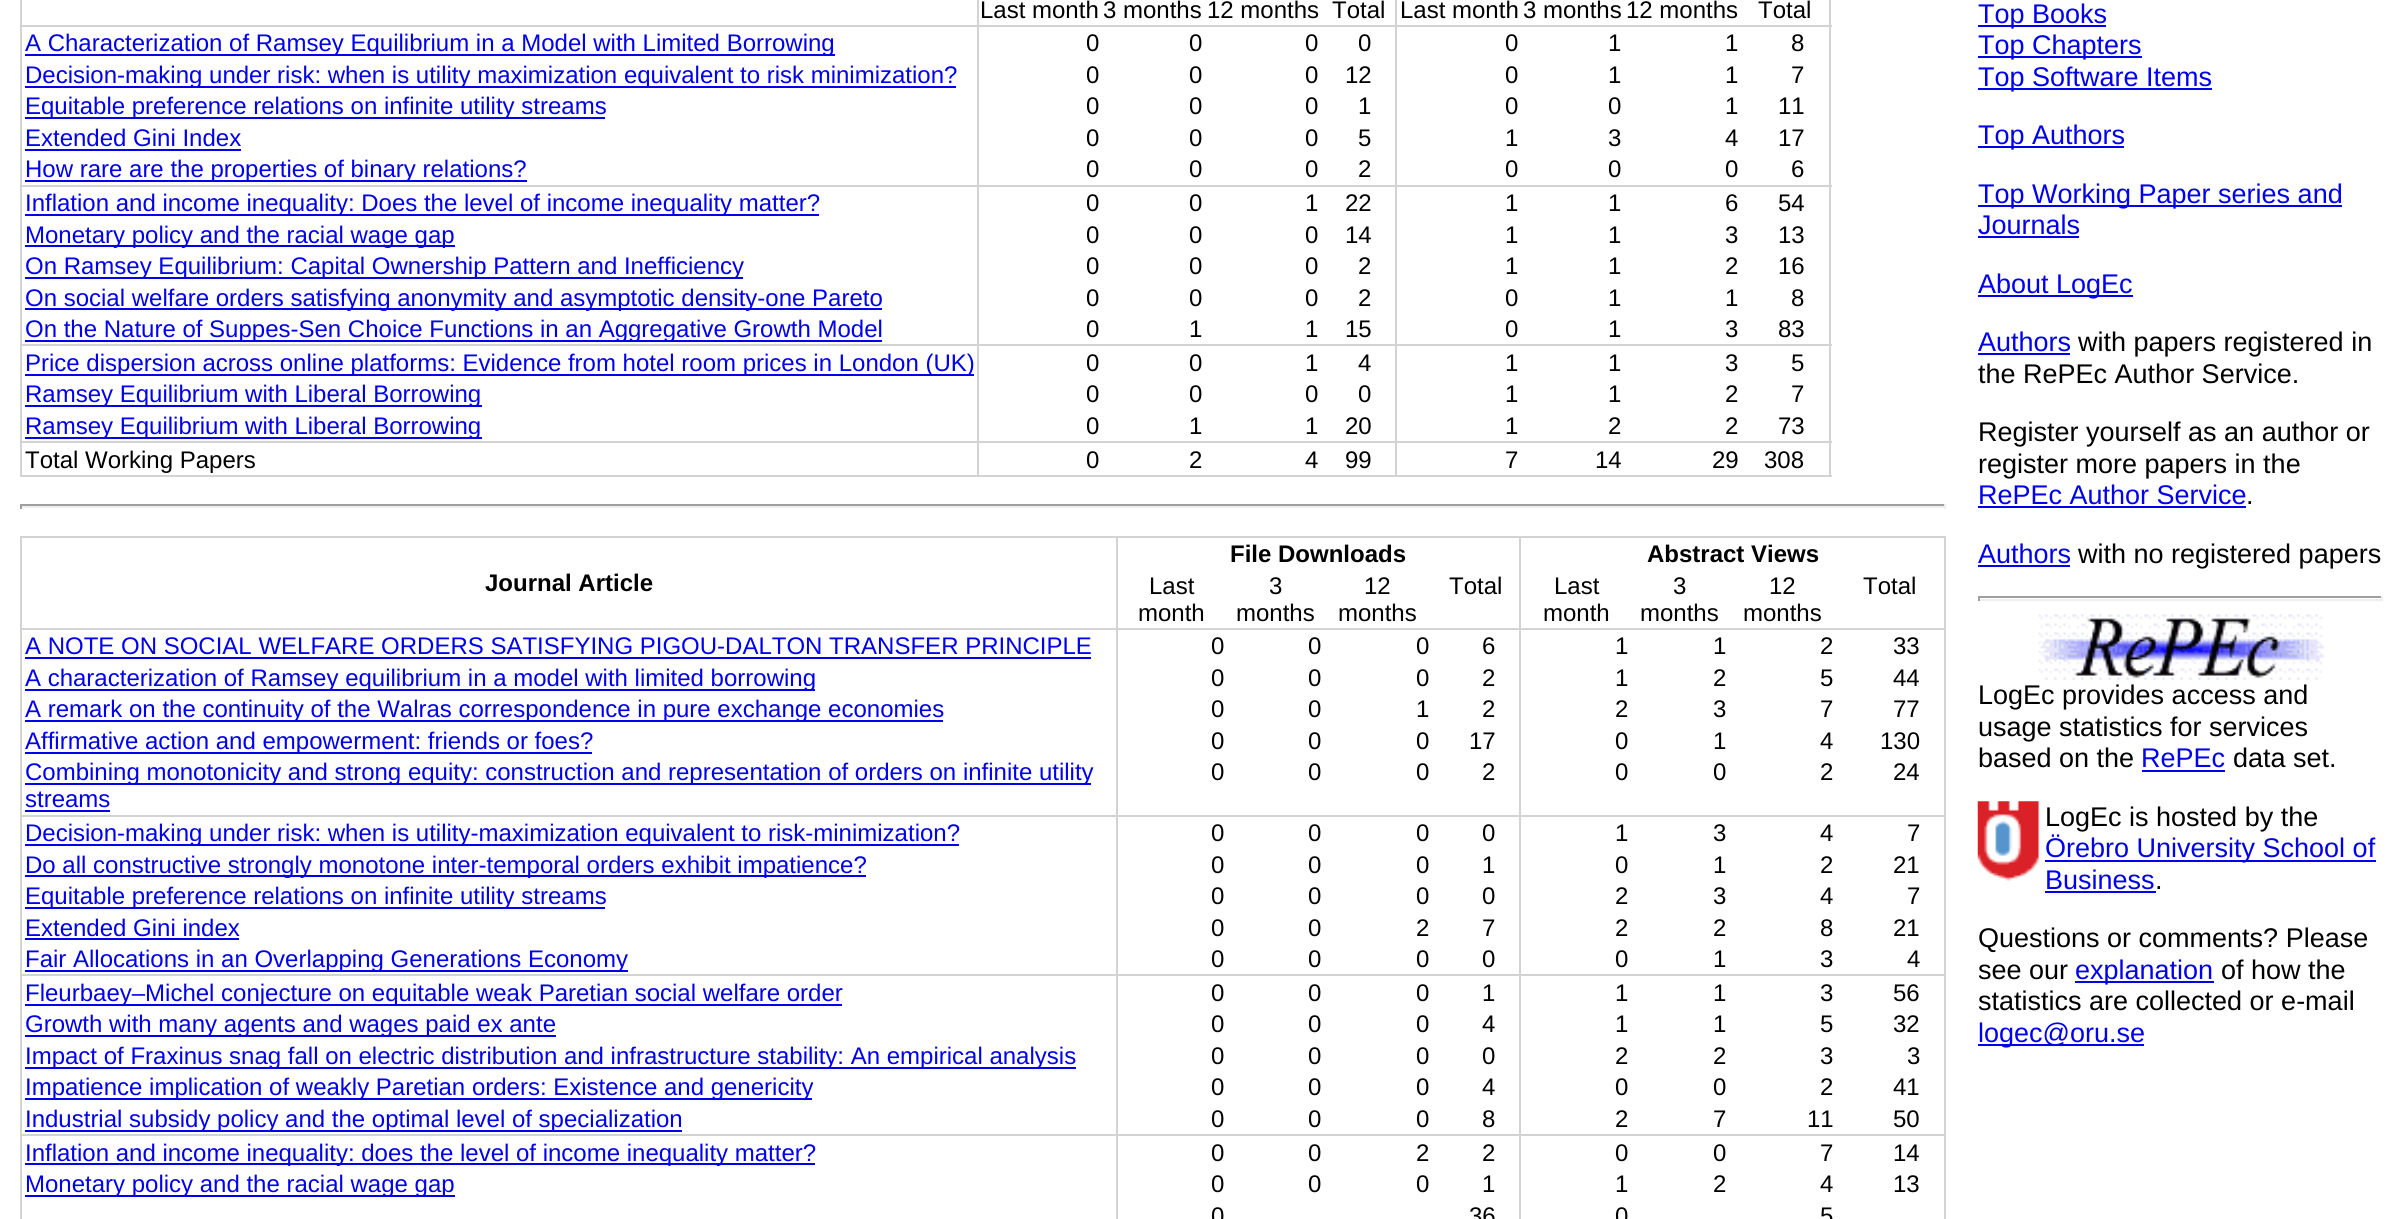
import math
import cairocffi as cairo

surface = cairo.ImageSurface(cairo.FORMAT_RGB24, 2401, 1219)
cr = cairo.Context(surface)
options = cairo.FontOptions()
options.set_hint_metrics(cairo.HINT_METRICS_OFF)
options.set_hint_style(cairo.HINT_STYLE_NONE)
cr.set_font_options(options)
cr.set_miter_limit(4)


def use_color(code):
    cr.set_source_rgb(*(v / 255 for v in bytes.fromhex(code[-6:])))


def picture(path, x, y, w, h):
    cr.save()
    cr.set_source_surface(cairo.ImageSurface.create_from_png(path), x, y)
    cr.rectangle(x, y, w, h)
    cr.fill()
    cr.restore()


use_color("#ffffff")
cr.paint()
use_color("#d3d3d3")
cr.rectangle(977, 0, 2, 477)
cr.fill()
cr.rectangle(20, 0, 2, 477)
cr.fill()
cr.rectangle(1395, 0, 2, 477)
cr.fill()
cr.rectangle(1829, 0, 2, 477)
cr.fill()
cr.rectangle(20, 25, 1812, 2)
cr.fill()
cr.select_font_face("Liberation Sans")
cr.set_font_size(24)
use_color("#000000")
cr.move_to(980, 18)
cr.show_text("Last month")
cr.move_to(1103, 18)
cr.show_text("3 months")
cr.move_to(1207, 18)
cr.show_text("12 months")
cr.move_to(1332, 18)
cr.show_text("Total")
cr.move_to(1400, 18)
cr.show_text("Last month")
cr.move_to(1523, 18)
cr.show_text("3 months")
cr.move_to(1626, 18)
cr.show_text("12 months")
cr.move_to(1758, 18)
cr.show_text("Total")
use_color("#0000ee")
cr.rectangle(25, 54, 810, 2)
cr.fill()
cr.move_to(25, 51)
cr.show_text("A Characterization of Ramsey Equilibrium in a Model with Limited Borrowing")
use_color("#000000")
cr.move_to(1086, 51)
cr.show_text("0")
cr.move_to(1189, 51)
cr.show_text("0")
cr.move_to(1305, 51)
cr.show_text("0")
cr.move_to(1358, 51)
cr.show_text("0")
cr.move_to(1505, 51)
cr.show_text("0")
cr.move_to(1608, 51)
cr.show_text("1")
cr.move_to(1725, 51)
cr.show_text("1")
cr.move_to(1791, 51)
cr.show_text("8")
use_color("#0000ee")
cr.rectangle(25, 86, 931, 2)
cr.fill()
cr.move_to(25, 83)
cr.show_text("Decision-making under risk: when is utility maximization equivalent to risk minimization?")
use_color("#000000")
cr.move_to(1086, 83)
cr.show_text("0")
cr.move_to(1189, 83)
cr.show_text("0")
cr.move_to(1305, 83)
cr.show_text("0")
cr.move_to(1345, 83)
cr.show_text("12")
cr.move_to(1505, 83)
cr.show_text("0")
cr.move_to(1608, 83)
cr.show_text("1")
cr.move_to(1725, 83)
cr.show_text("1")
cr.move_to(1791, 83)
cr.show_text("7")
use_color("#0000ee")
cr.rectangle(25, 117, 580, 2)
cr.fill()
cr.move_to(25, 114)
cr.show_text("Equitable preference relations on infinite utility streams")
use_color("#000000")
cr.move_to(1086, 114)
cr.show_text("0")
cr.move_to(1189, 114)
cr.show_text("0")
cr.move_to(1305, 114)
cr.show_text("0")
cr.move_to(1358, 114)
cr.show_text("1")
cr.move_to(1505, 114)
cr.show_text("0")
cr.move_to(1608, 114)
cr.show_text("0")
cr.move_to(1725, 114)
cr.show_text("1")
cr.move_to(1778, 114)
cr.show_text("11")
use_color("#0000ee")
cr.move_to(25, 146)
cr.show_text("Extended Gini Index")
cr.rectangle(25, 149, 216, 2)
cr.fill()
use_color("#000000")
cr.move_to(1086, 146)
cr.show_text("0")
cr.move_to(1189, 146)
cr.show_text("0")
cr.move_to(1305, 146)
cr.show_text("0")
cr.move_to(1358, 146)
cr.show_text("5")
cr.move_to(1505, 146)
cr.show_text("1")
cr.move_to(1608, 146)
cr.show_text("3")
cr.move_to(1725, 146)
cr.show_text("4")
cr.move_to(1778, 146)
cr.show_text("17")
use_color("#d3d3d3")
cr.rectangle(20, 185, 1812, 2)
cr.fill()
use_color("#0000ee")
cr.rectangle(25, 180, 502, 2)
cr.fill()
cr.move_to(25, 177)
cr.show_text("How rare are the properties of binary relations?")
use_color("#000000")
cr.move_to(1086, 177)
cr.show_text("0")
cr.move_to(1189, 177)
cr.show_text("0")
cr.move_to(1305, 177)
cr.show_text("0")
cr.move_to(1358, 177)
cr.show_text("2")
cr.move_to(1505, 177)
cr.show_text("0")
cr.move_to(1608, 177)
cr.show_text("0")
cr.move_to(1725, 177)
cr.show_text("0")
cr.move_to(1791, 177)
cr.show_text("6")
use_color("#0000ee")
cr.rectangle(25, 214, 794, 2)
cr.fill()
cr.move_to(25, 211)
cr.show_text("Inflation and income inequality: Does the level of income inequality matter?")
use_color("#000000")
cr.move_to(1086, 211)
cr.show_text("0")
cr.move_to(1189, 211)
cr.show_text("0")
cr.move_to(1305, 211)
cr.show_text("1")
cr.move_to(1345, 211)
cr.show_text("22")
cr.move_to(1505, 211)
cr.show_text("1")
cr.move_to(1608, 211)
cr.show_text("1")
cr.move_to(1725, 211)
cr.show_text("6")
cr.move_to(1778, 211)
cr.show_text("54")
use_color("#0000ee")
cr.rectangle(25, 245, 430, 2)
cr.fill()
cr.move_to(25, 243)
cr.show_text("Monetary policy and the racial wage gap")
use_color("#000000")
cr.move_to(1086, 243)
cr.show_text("0")
cr.move_to(1189, 243)
cr.show_text("0")
cr.move_to(1305, 243)
cr.show_text("0")
cr.move_to(1345, 243)
cr.show_text("14")
cr.move_to(1505, 243)
cr.show_text("1")
cr.move_to(1608, 243)
cr.show_text("1")
cr.move_to(1725, 243)
cr.show_text("3")
cr.move_to(1778, 243)
cr.show_text("13")
use_color("#0000ee")
cr.rectangle(25, 277, 718, 2)
cr.fill()
cr.move_to(25, 274)
cr.show_text("On Ramsey Equilibrium: Capital Ownership Pattern and Inefficiency")
use_color("#000000")
cr.move_to(1086, 274)
cr.show_text("0")
cr.move_to(1189, 274)
cr.show_text("0")
cr.move_to(1305, 274)
cr.show_text("0")
cr.move_to(1358, 274)
cr.show_text("2")
cr.move_to(1505, 274)
cr.show_text("1")
cr.move_to(1608, 274)
cr.show_text("1")
cr.move_to(1725, 274)
cr.show_text("2")
cr.move_to(1778, 274)
cr.show_text("16")
use_color("#0000ee")
cr.rectangle(25, 308, 857, 2)
cr.fill()
cr.move_to(25, 306)
cr.show_text("On social welfare orders satisfying anonymity and asymptotic density-one Pareto")
use_color("#000000")
cr.move_to(1086, 306)
cr.show_text("0")
cr.move_to(1189, 306)
cr.show_text("0")
cr.move_to(1305, 306)
cr.show_text("0")
cr.move_to(1358, 306)
cr.show_text("2")
cr.move_to(1505, 306)
cr.show_text("0")
cr.move_to(1608, 306)
cr.show_text("1")
cr.move_to(1725, 306)
cr.show_text("1")
cr.move_to(1791, 306)
cr.show_text("8")
use_color("#d3d3d3")
cr.rectangle(20, 344, 1812, 2)
cr.fill()
use_color("#0000ee")
cr.rectangle(25, 340, 857, 2)
cr.fill()
cr.move_to(25, 337)
cr.show_text("On the Nature of Suppes-Sen Choice Functions in an Aggregative Growth Model")
use_color("#000000")
cr.move_to(1086, 337)
cr.show_text("0")
cr.move_to(1189, 337)
cr.show_text("1")
cr.move_to(1305, 337)
cr.show_text("1")
cr.move_to(1345, 337)
cr.show_text("15")
cr.move_to(1505, 337)
cr.show_text("0")
cr.move_to(1608, 337)
cr.show_text("1")
cr.move_to(1725, 337)
cr.show_text("3")
cr.move_to(1778, 337)
cr.show_text("83")
use_color("#0000ee")
cr.rectangle(25, 374, 949, 2)
cr.fill()
cr.move_to(25, 371)
cr.show_text("Price dispersion across online platforms: Evidence from hotel room prices in London (UK)")
use_color("#000000")
cr.move_to(1086, 371)
cr.show_text("0")
cr.move_to(1189, 371)
cr.show_text("0")
cr.move_to(1305, 371)
cr.show_text("1")
cr.move_to(1358, 371)
cr.show_text("4")
cr.move_to(1505, 371)
cr.show_text("1")
cr.move_to(1608, 371)
cr.show_text("1")
cr.move_to(1725, 371)
cr.show_text("3")
cr.move_to(1791, 371)
cr.show_text("5")
use_color("#0000ee")
cr.rectangle(25, 405, 457, 2)
cr.fill()
cr.move_to(25, 402)
cr.show_text("Ramsey Equilibrium with Liberal Borrowing")
use_color("#000000")
cr.move_to(1086, 402)
cr.show_text("0")
cr.move_to(1189, 402)
cr.show_text("0")
cr.move_to(1305, 402)
cr.show_text("0")
cr.move_to(1358, 402)
cr.show_text("0")
cr.move_to(1505, 402)
cr.show_text("1")
cr.move_to(1608, 402)
cr.show_text("1")
cr.move_to(1725, 402)
cr.show_text("2")
cr.move_to(1791, 402)
cr.show_text("7")
use_color("#d3d3d3")
cr.rectangle(20, 441, 1812, 2)
cr.fill()
use_color("#0000ee")
cr.rectangle(25, 437, 457, 2)
cr.fill()
cr.move_to(25, 434)
cr.show_text("Ramsey Equilibrium with Liberal Borrowing")
use_color("#000000")
cr.move_to(1086, 434)
cr.show_text("0")
cr.move_to(1189, 434)
cr.show_text("1")
cr.move_to(1305, 434)
cr.show_text("1")
cr.move_to(1345, 434)
cr.show_text("20")
cr.move_to(1505, 434)
cr.show_text("1")
cr.move_to(1608, 434)
cr.show_text("2")
cr.move_to(1725, 434)
cr.show_text("2")
cr.move_to(1778, 434)
cr.show_text("73")
use_color("#d3d3d3")
cr.rectangle(20, 475, 1812, 2)
cr.fill()
use_color("#000000")
cr.move_to(25, 468)
cr.show_text("Total Working Papers")
cr.move_to(1086, 468)
cr.show_text("0")
cr.move_to(1189, 468)
cr.show_text("2")
cr.move_to(1305, 468)
cr.show_text("4")
cr.move_to(1345, 468)
cr.show_text("99")
cr.move_to(1505, 468)
cr.show_text("7")
cr.move_to(1595, 468)
cr.show_text("14")
cr.move_to(1712, 468)
cr.show_text("29")
cr.move_to(1764, 468)
cr.show_text("308")
use_color("#9f9f9f")
cr.rectangle(20, 504, 1926, 2)
cr.fill()
use_color("#eeeeee")
cr.rectangle(1944, 504, 2, 5)
cr.fill()
cr.rectangle(20, 506, 1926, 2)
cr.fill()
use_color("#9f9f9f")
cr.rectangle(20, 504, 2, 5)
cr.fill()
use_color("#d3d3d3")
cr.rectangle(1116, 536, 2, 683)
cr.fill()
cr.rectangle(20, 536, 2, 683)
cr.fill()
cr.rectangle(1519, 536, 2, 683)
cr.fill()
cr.rectangle(1944, 536, 2, 683)
cr.fill()
cr.rectangle(20, 536, 1926, 2)
cr.fill()
cr.select_font_face("Liberation Sans", cairo.FONT_SLANT_NORMAL, cairo.FONT_WEIGHT_BOLD)
use_color("#000000")
cr.move_to(1230, 562)
cr.show_text("File Downloads")
cr.move_to(1647, 562)
cr.show_text("Abstract Views")
cr.move_to(485, 591)
cr.show_text("Journal Article")
use_color("#d3d3d3")
cr.rectangle(20, 628, 1926, 2)
cr.fill()
cr.select_font_face("Liberation Sans")
use_color("#000000")
cr.move_to(1149, 594)
cr.show_text("Last")
cr.move_to(1138, 621)
cr.show_text("month")
cr.move_to(1269, 594)
cr.show_text("3")
cr.move_to(1236, 621)
cr.show_text("months")
cr.move_to(1364, 594)
cr.show_text("12")
cr.move_to(1338, 621)
cr.show_text("months")
cr.move_to(1449, 594)
cr.show_text("Total")
cr.move_to(1554, 594)
cr.show_text("Last")
cr.move_to(1543, 621)
cr.show_text("month")
cr.move_to(1673, 594)
cr.show_text("3")
cr.move_to(1640, 621)
cr.show_text("months")
cr.move_to(1769, 594)
cr.show_text("12")
cr.move_to(1743, 621)
cr.show_text("months")
cr.move_to(1863, 594)
cr.show_text("Total")
use_color("#0000ee")
cr.move_to(25, 654)
cr.show_text("A NOTE ON SOCIAL WELFARE ORDERS SATISFYING PIGOU-DALTON TRANSFER PRINCIPLE")
cr.rectangle(25, 657, 1066, 2)
cr.fill()
use_color("#000000")
cr.move_to(1211, 654)
cr.show_text("0")
cr.move_to(1308, 654)
cr.show_text("0")
cr.move_to(1416, 654)
cr.show_text("0")
cr.move_to(1482, 654)
cr.show_text("6")
cr.move_to(1615, 654)
cr.show_text("1")
cr.move_to(1713, 654)
cr.show_text("1")
cr.move_to(1820, 654)
cr.show_text("2")
cr.move_to(1893, 654)
cr.show_text("33")
use_color("#0000ee")
cr.rectangle(25, 689, 790, 2)
cr.fill()
cr.move_to(25, 686)
cr.show_text("A characterization of Ramsey equilibrium in a model with limited borrowing")
use_color("#000000")
cr.move_to(1211, 686)
cr.show_text("0")
cr.move_to(1308, 686)
cr.show_text("0")
cr.move_to(1416, 686)
cr.show_text("0")
cr.move_to(1482, 686)
cr.show_text("2")
cr.move_to(1615, 686)
cr.show_text("1")
cr.move_to(1713, 686)
cr.show_text("2")
cr.move_to(1820, 686)
cr.show_text("5")
cr.move_to(1893, 686)
cr.show_text("44")
use_color("#0000ee")
cr.rectangle(25, 720, 918, 2)
cr.fill()
cr.move_to(25, 717)
cr.show_text("A remark on the continuity of the Walras correspondence in pure exchange economies")
use_color("#000000")
cr.move_to(1211, 717)
cr.show_text("0")
cr.move_to(1308, 717)
cr.show_text("0")
cr.move_to(1416, 717)
cr.show_text("1")
cr.move_to(1482, 717)
cr.show_text("2")
cr.move_to(1615, 717)
cr.show_text("2")
cr.move_to(1713, 717)
cr.show_text("3")
cr.move_to(1820, 717)
cr.show_text("7")
cr.move_to(1893, 717)
cr.show_text("77")
use_color("#0000ee")
cr.rectangle(25, 752, 567, 2)
cr.fill()
cr.move_to(25, 749)
cr.show_text("Affirmative action and empowerment: friends or foes?")
use_color("#000000")
cr.move_to(1211, 749)
cr.show_text("0")
cr.move_to(1308, 749)
cr.show_text("0")
cr.move_to(1416, 749)
cr.show_text("0")
cr.move_to(1469, 749)
cr.show_text("17")
cr.move_to(1615, 749)
cr.show_text("0")
cr.move_to(1713, 749)
cr.show_text("1")
cr.move_to(1820, 749)
cr.show_text("4")
cr.move_to(1880, 749)
cr.show_text("130")
use_color("#d3d3d3")
cr.rectangle(20, 815, 1926, 2)
cr.fill()
use_color("#0000ee")
cr.rectangle(25, 783, 1066, 2)
cr.fill()
cr.move_to(25, 780)
cr.show_text("Combining monotonicity and strong equity: construction and representation of orders on infinite utility")
cr.move_to(25, 807)
cr.show_text("streams")
cr.rectangle(25, 810, 85, 2)
cr.fill()
use_color("#000000")
cr.move_to(1211, 780)
cr.show_text("0")
cr.move_to(1308, 780)
cr.show_text("0")
cr.move_to(1416, 780)
cr.show_text("0")
cr.move_to(1482, 780)
cr.show_text("2")
cr.move_to(1615, 780)
cr.show_text("0")
cr.move_to(1713, 780)
cr.show_text("0")
cr.move_to(1820, 780)
cr.show_text("2")
cr.move_to(1893, 780)
cr.show_text("24")
use_color("#0000ee")
cr.rectangle(25, 844, 934, 2)
cr.fill()
cr.move_to(25, 841)
cr.show_text("Decision-making under risk: when is utility-maximization equivalent to risk-minimization?")
use_color("#000000")
cr.move_to(1211, 841)
cr.show_text("0")
cr.move_to(1308, 841)
cr.show_text("0")
cr.move_to(1416, 841)
cr.show_text("0")
cr.move_to(1482, 841)
cr.show_text("0")
cr.move_to(1615, 841)
cr.show_text("1")
cr.move_to(1713, 841)
cr.show_text("3")
cr.move_to(1820, 841)
cr.show_text("4")
cr.move_to(1907, 841)
cr.show_text("7")
use_color("#0000ee")
cr.rectangle(25, 875, 841, 2)
cr.fill()
cr.move_to(25, 873)
cr.show_text("Do all constructive strongly monotone inter-temporal orders exhibit impatience?")
use_color("#000000")
cr.move_to(1211, 873)
cr.show_text("0")
cr.move_to(1308, 873)
cr.show_text("0")
cr.move_to(1416, 873)
cr.show_text("0")
cr.move_to(1482, 873)
cr.show_text("1")
cr.move_to(1615, 873)
cr.show_text("0")
cr.move_to(1713, 873)
cr.show_text("1")
cr.move_to(1820, 873)
cr.show_text("2")
cr.move_to(1893, 873)
cr.show_text("21")
use_color("#0000ee")
cr.rectangle(25, 907, 580, 2)
cr.fill()
cr.move_to(25, 904)
cr.show_text("Equitable preference relations on infinite utility streams")
use_color("#000000")
cr.move_to(1211, 904)
cr.show_text("0")
cr.move_to(1308, 904)
cr.show_text("0")
cr.move_to(1416, 904)
cr.show_text("0")
cr.move_to(1482, 904)
cr.show_text("0")
cr.move_to(1615, 904)
cr.show_text("2")
cr.move_to(1713, 904)
cr.show_text("3")
cr.move_to(1820, 904)
cr.show_text("4")
cr.move_to(1907, 904)
cr.show_text("7")
use_color("#0000ee")
cr.move_to(25, 936)
cr.show_text("Extended Gini index")
cr.rectangle(25, 938, 214, 2)
cr.fill()
use_color("#000000")
cr.move_to(1211, 936)
cr.show_text("0")
cr.move_to(1308, 936)
cr.show_text("0")
cr.move_to(1416, 936)
cr.show_text("2")
cr.move_to(1482, 936)
cr.show_text("7")
cr.move_to(1615, 936)
cr.show_text("2")
cr.move_to(1713, 936)
cr.show_text("2")
cr.move_to(1820, 936)
cr.show_text("8")
cr.move_to(1893, 936)
cr.show_text("21")
use_color("#d3d3d3")
cr.rectangle(20, 974, 1926, 2)
cr.fill()
use_color("#0000ee")
cr.rectangle(25, 970, 603, 2)
cr.fill()
cr.move_to(25, 967)
cr.show_text("Fair Allocations in an Overlapping Generations Economy")
use_color("#000000")
cr.move_to(1211, 967)
cr.show_text("0")
cr.move_to(1308, 967)
cr.show_text("0")
cr.move_to(1416, 967)
cr.show_text("0")
cr.move_to(1482, 967)
cr.show_text("0")
cr.move_to(1615, 967)
cr.show_text("0")
cr.move_to(1713, 967)
cr.show_text("1")
cr.move_to(1820, 967)
cr.show_text("3")
cr.move_to(1907, 967)
cr.show_text("4")
use_color("#0000ee")
cr.rectangle(25, 1004, 817, 2)
cr.fill()
cr.move_to(25, 1001)
cr.show_text("Fleurbaey–Michel conjecture on equitable weak Paretian social welfare order")
use_color("#000000")
cr.move_to(1211, 1001)
cr.show_text("0")
cr.move_to(1308, 1001)
cr.show_text("0")
cr.move_to(1416, 1001)
cr.show_text("0")
cr.move_to(1482, 1001)
cr.show_text("1")
cr.move_to(1615, 1001)
cr.show_text("1")
cr.move_to(1713, 1001)
cr.show_text("1")
cr.move_to(1820, 1001)
cr.show_text("3")
cr.move_to(1893, 1001)
cr.show_text("56")
use_color("#0000ee")
cr.rectangle(25, 1035, 531, 2)
cr.fill()
cr.move_to(25, 1032)
cr.show_text("Growth with many agents and wages paid ex ante")
use_color("#000000")
cr.move_to(1211, 1032)
cr.show_text("0")
cr.move_to(1308, 1032)
cr.show_text("0")
cr.move_to(1416, 1032)
cr.show_text("0")
cr.move_to(1482, 1032)
cr.show_text("4")
cr.move_to(1615, 1032)
cr.show_text("1")
cr.move_to(1713, 1032)
cr.show_text("1")
cr.move_to(1820, 1032)
cr.show_text("5")
cr.move_to(1893, 1032)
cr.show_text("32")
use_color("#0000ee")
cr.rectangle(25, 1067, 1051, 2)
cr.fill()
cr.move_to(25, 1064)
cr.show_text("Impact of Fraxinus snag fall on electric distribution and infrastructure stability: An empirical analysis")
use_color("#000000")
cr.move_to(1211, 1064)
cr.show_text("0")
cr.move_to(1308, 1064)
cr.show_text("0")
cr.move_to(1416, 1064)
cr.show_text("0")
cr.move_to(1482, 1064)
cr.show_text("0")
cr.move_to(1615, 1064)
cr.show_text("2")
cr.move_to(1713, 1064)
cr.show_text("2")
cr.move_to(1820, 1064)
cr.show_text("3")
cr.move_to(1907, 1064)
cr.show_text("3")
use_color("#0000ee")
cr.rectangle(25, 1098, 787, 2)
cr.fill()
cr.move_to(25, 1095)
cr.show_text("Impatience implication of weakly Paretian orders: Existence and genericity")
use_color("#000000")
cr.move_to(1211, 1095)
cr.show_text("0")
cr.move_to(1308, 1095)
cr.show_text("0")
cr.move_to(1416, 1095)
cr.show_text("0")
cr.move_to(1482, 1095)
cr.show_text("4")
cr.move_to(1615, 1095)
cr.show_text("0")
cr.move_to(1713, 1095)
cr.show_text("0")
cr.move_to(1820, 1095)
cr.show_text("2")
cr.move_to(1893, 1095)
cr.show_text("41")
use_color("#d3d3d3")
cr.rectangle(20, 1134, 1926, 2)
cr.fill()
use_color("#0000ee")
cr.rectangle(25, 1130, 657, 2)
cr.fill()
cr.move_to(25, 1127)
cr.show_text("Industrial subsidy policy and the optimal level of specialization")
use_color("#000000")
cr.move_to(1211, 1127)
cr.show_text("0")
cr.move_to(1308, 1127)
cr.show_text("0")
cr.move_to(1416, 1127)
cr.show_text("0")
cr.move_to(1482, 1127)
cr.show_text("8")
cr.move_to(1615, 1127)
cr.show_text("2")
cr.move_to(1713, 1127)
cr.show_text("7")
cr.move_to(1807, 1127)
cr.show_text("11")
cr.move_to(1893, 1127)
cr.show_text("50")
use_color("#0000ee")
cr.rectangle(25, 1163, 790, 2)
cr.fill()
cr.move_to(25, 1161)
cr.show_text("Inflation and income inequality: does the level of income inequality matter?")
use_color("#000000")
cr.move_to(1211, 1161)
cr.show_text("0")
cr.move_to(1308, 1161)
cr.show_text("0")
cr.move_to(1416, 1161)
cr.show_text("2")
cr.move_to(1482, 1161)
cr.show_text("2")
cr.move_to(1615, 1161)
cr.show_text("0")
cr.move_to(1713, 1161)
cr.show_text("0")
cr.move_to(1820, 1161)
cr.show_text("7")
cr.move_to(1893, 1161)
cr.show_text("14")
use_color("#0000ee")
cr.rectangle(25, 1195, 430, 2)
cr.fill()
cr.move_to(25, 1192)
cr.show_text("Monetary policy and the racial wage gap")
use_color("#000000")
cr.move_to(1211, 1192)
cr.show_text("0")
cr.move_to(1308, 1192)
cr.show_text("0")
cr.move_to(1416, 1192)
cr.show_text("0")
cr.move_to(1482, 1192)
cr.show_text("1")
cr.move_to(1615, 1192)
cr.show_text("1")
cr.move_to(1713, 1192)
cr.show_text("2")
cr.move_to(1820, 1192)
cr.show_text("4")
cr.move_to(1893, 1192)
cr.show_text("13")
cr.move_to(1211, 1224)
cr.show_text("0")
cr.move_to(1469, 1224)
cr.show_text("36")
cr.move_to(1615, 1224)
cr.show_text("0")
cr.move_to(1820, 1224)
cr.show_text("5")
use_color("#0000ee")
cr.rectangle(1978, 25, 128, 2)
cr.fill()
cr.set_font_size(27)
cr.move_to(1978, 23)
cr.show_text("Top Books")
cr.rectangle(1978, 56, 164, 2)
cr.fill()
cr.move_to(1978, 54)
cr.show_text("Top Chapters")
cr.rectangle(1978, 88, 234, 2)
cr.fill()
cr.move_to(1978, 86)
cr.show_text("Top Software Items")
cr.rectangle(1978, 146, 146, 2)
cr.fill()
cr.move_to(1978, 144)
cr.show_text("Top Authors")
cr.rectangle(1978, 205, 364, 2)
cr.fill()
cr.move_to(1978, 203)
cr.show_text("Top Working Paper series and")
cr.move_to(1978, 234)
cr.show_text("Journals")
cr.rectangle(1978, 236, 101, 2)
cr.fill()
cr.rectangle(1978, 295, 155, 2)
cr.fill()
cr.move_to(1978, 293)
cr.show_text("About LogEc")
cr.move_to(1978, 351)
cr.show_text("Authors")
cr.rectangle(1978, 353, 92, 2)
cr.fill()
use_color("#000000")
cr.move_to(2078, 351)
cr.show_text("with papers registered in")
cr.move_to(1978, 383)
cr.show_text("the RePEc Author Service.")
cr.move_to(1978, 441)
cr.show_text("Register yourself as an author or")
cr.move_to(1978, 473)
cr.show_text("register more papers in the")
use_color("#0000ee")
cr.move_to(1978, 504)
cr.show_text("RePEc Author Service")
cr.rectangle(1978, 506, 268, 2)
cr.fill()
use_color("#000000")
cr.move_to(2246, 504)
cr.show_text(".")
use_color("#0000ee")
cr.move_to(1978, 563)
cr.show_text("Authors")
cr.rectangle(1978, 565, 92, 2)
cr.fill()
use_color("#000000")
cr.move_to(2078, 563)
cr.show_text("with no registered papers")
use_color("#9f9f9f")
cr.rectangle(1978, 596, 405, 2)
cr.fill()
use_color("#eeeeee")
cr.rectangle(2381, 596, 2, 5)
cr.fill()
cr.rectangle(1978, 599, 405, 2)
cr.fill()
use_color("#9f9f9f")
cr.rectangle(1978, 596, 2, 5)
cr.fill()
picture("img1.png", 2038, 614, 287, 66)
use_color("#000000")
cr.move_to(1978, 704)
cr.show_text("LogEc provides access and")
cr.move_to(1978, 736)
cr.show_text("usage statistics for services")
cr.move_to(1978, 767)
cr.show_text("based on the")
use_color("#0000ee")
cr.move_to(2141, 767)
cr.show_text("RePEc")
cr.rectangle(2142, 770, 83, 2)
cr.fill()
use_color("#000000")
cr.move_to(2233, 767)
cr.show_text("data set.")
picture("img2.png", 1977, 801, 63, 80)
cr.move_to(2045, 826)
cr.show_text("LogEc is hosted by the")
use_color("#0000ee")
cr.rectangle(2045, 860, 331, 2)
cr.fill()
cr.move_to(2045, 857)
cr.show_text("Örebro University School of")
cr.move_to(2045, 889)
cr.show_text("Business")
cr.rectangle(2045, 891, 111, 2)
cr.fill()
use_color("#000000")
cr.move_to(2155, 889)
cr.show_text(".")
cr.move_to(1978, 947)
cr.show_text("Questions or comments? Please")
cr.move_to(1978, 979)
cr.show_text("see our")
use_color("#0000ee")
cr.rectangle(2075, 981, 139, 2)
cr.fill()
cr.move_to(2075, 979)
cr.show_text("explanation")
use_color("#000000")
cr.move_to(2221, 979)
cr.show_text("of how the")
cr.move_to(1978, 1010)
cr.show_text("statistics are collected or e-mail")
use_color("#0000ee")
cr.rectangle(1978, 1044, 166, 2)
cr.fill()
cr.move_to(1978, 1042)
cr.show_text("logec@oru.se")
surface.write_to_png("result.png")
